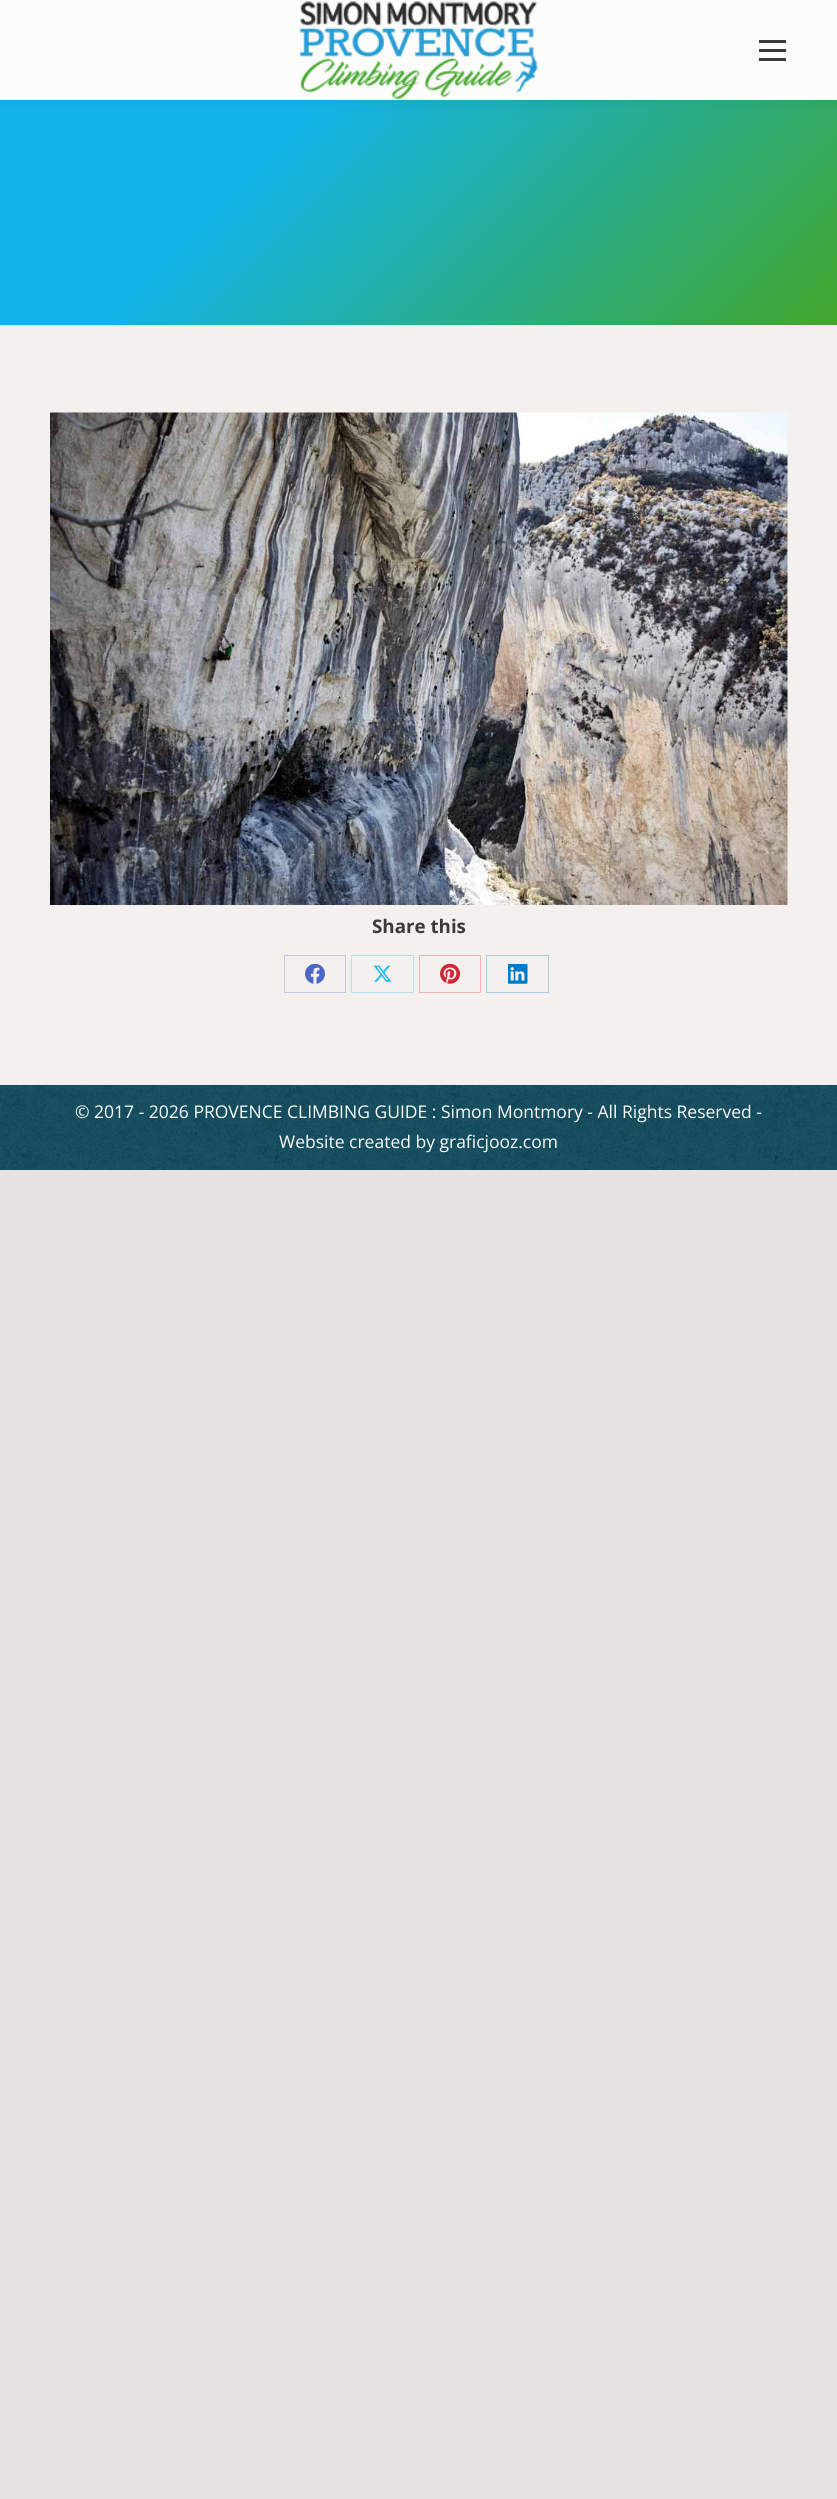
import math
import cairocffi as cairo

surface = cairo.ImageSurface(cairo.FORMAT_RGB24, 837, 2499)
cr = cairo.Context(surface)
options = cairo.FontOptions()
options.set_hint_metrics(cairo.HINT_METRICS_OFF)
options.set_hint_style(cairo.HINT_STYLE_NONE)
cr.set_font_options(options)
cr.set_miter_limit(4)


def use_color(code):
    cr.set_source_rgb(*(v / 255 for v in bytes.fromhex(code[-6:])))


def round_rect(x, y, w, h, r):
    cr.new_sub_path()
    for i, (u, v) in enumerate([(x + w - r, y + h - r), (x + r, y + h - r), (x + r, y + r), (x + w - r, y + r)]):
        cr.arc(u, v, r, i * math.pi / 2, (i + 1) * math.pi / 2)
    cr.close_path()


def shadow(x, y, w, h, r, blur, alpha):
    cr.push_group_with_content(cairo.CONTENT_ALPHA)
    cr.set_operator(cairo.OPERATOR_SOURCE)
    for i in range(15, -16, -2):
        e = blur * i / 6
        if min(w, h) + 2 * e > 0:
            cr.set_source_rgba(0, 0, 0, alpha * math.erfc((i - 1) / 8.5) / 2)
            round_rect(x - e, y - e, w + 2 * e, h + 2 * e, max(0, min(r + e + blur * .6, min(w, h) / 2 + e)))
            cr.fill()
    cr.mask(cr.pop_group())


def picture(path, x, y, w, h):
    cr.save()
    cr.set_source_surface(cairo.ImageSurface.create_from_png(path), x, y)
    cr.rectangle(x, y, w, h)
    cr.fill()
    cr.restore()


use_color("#e5e2e0")
cr.paint()
use_color("#f3f0ed")
cr.rectangle(0, 325, 837, 760)
cr.fill()
gradient = cairo.LinearGradient(153, -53, 684, 478)
gradient.add_color_stop_rgba(0.3, 0.071, 0.706, 0.918, 1)
gradient.add_color_stop_rgba(1, 0.255, 0.651, 0.165, 1)
cr.set_source(gradient)
cr.rectangle(0, 100, 837, 225)
cr.fill()
use_color("#000000")
shadow(-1, -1, 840, 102, 0, 9.5, 0.07)
use_color("#fcfcfb")
cr.rectangle(0, 0, 837, 100)
cr.fill()
picture("img1.png", 299, 1, 239, 98)
use_color("#3a3a3a")
cr.rectangle(759, 40, 27, 3)
cr.fill()
cr.rectangle(759, 49, 27, 3)
cr.fill()
cr.rectangle(759, 58, 27, 3)
cr.fill()
picture("img2.png", 50, 412, 738, 493)
cr.select_font_face("Open Sans", cairo.FONT_SLANT_NORMAL, cairo.FONT_WEIGHT_BOLD)
cr.set_font_size(18.75)
cr.move_to(372, 933)
cr.show_text("Share this")
cr.rectangle(284.5, 955.5, 61, 37)
use_color("#c1c8e2")
cr.set_line_width(1)
cr.stroke()
picture("img3.png", 305, 964, 20, 20)
cr.rectangle(351.5, 955.5, 62, 37)
use_color("#b7e1ec")
cr.stroke()
picture("img4.png", 373, 965, 19, 17)
cr.rectangle(419.5, 955.5, 61, 37)
use_color("#e8b4b6")
cr.stroke()
picture("img5.png", 440, 964, 20, 20)
cr.rectangle(486.5, 955.5, 62, 37)
use_color("#aacde2")
cr.stroke()
picture("img6.png", 508, 964, 20, 20)
use_color("#003e51")
cr.rectangle(0, 1085, 837, 85)
cr.fill()
picture("img7.png", 0, 1085, 837, 85)
cr.select_font_face("Open Sans")
cr.set_font_size(17.5)
use_color("#fcfcfb")
cr.move_to(75, 1118)
cr.show_text("© 2017 - 2026 PROVENCE CLIMBING GUIDE : Simon Montmory - All Rights Reserved -")
cr.move_to(279, 1148)
cr.show_text("Website created by graficjooz.com")
surface.write_to_png("result.png")
